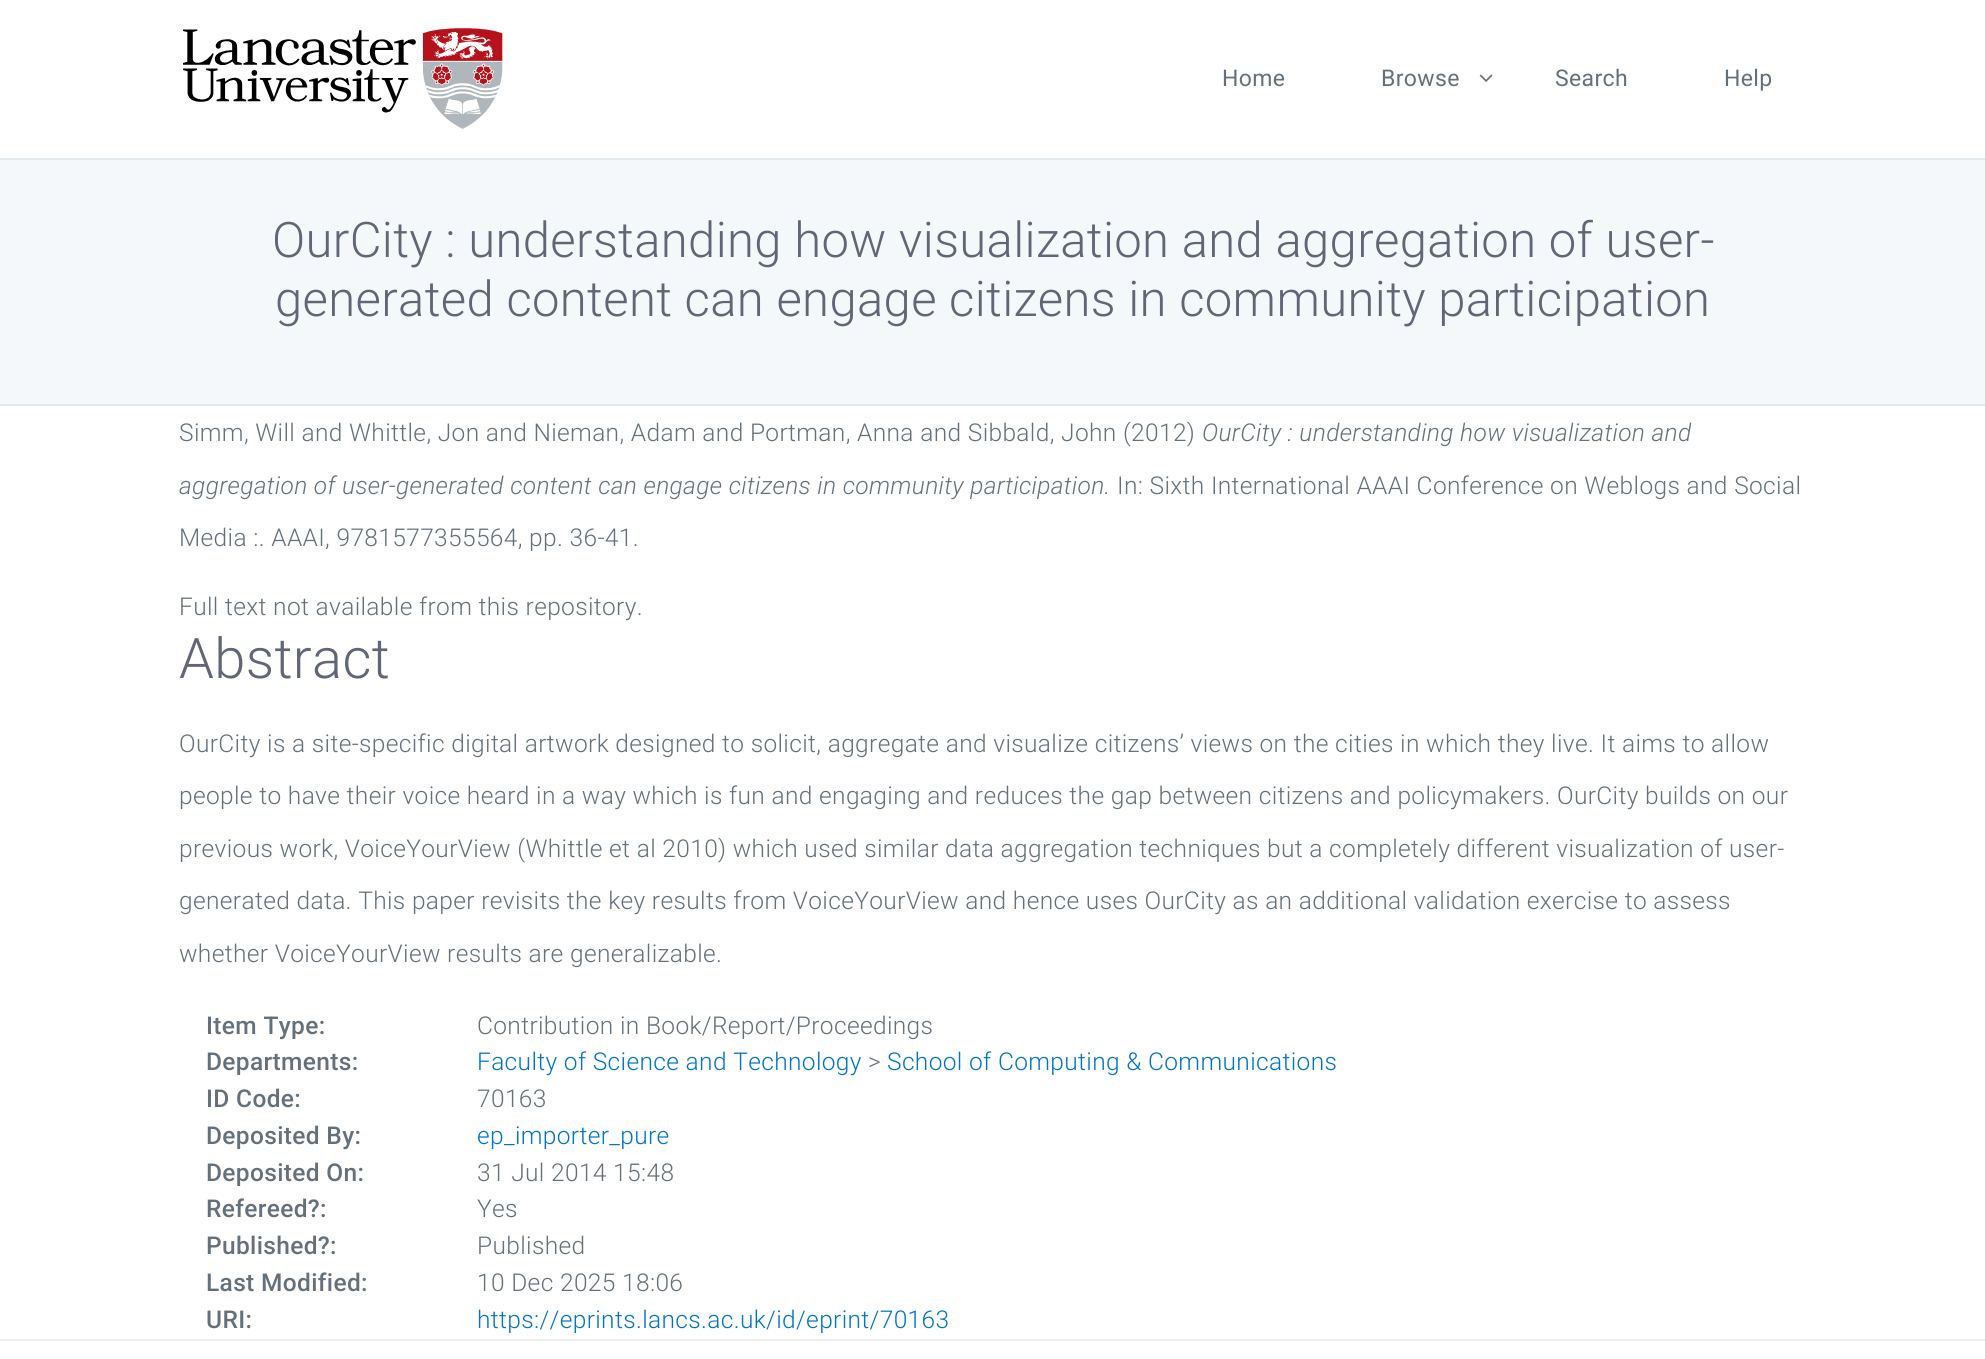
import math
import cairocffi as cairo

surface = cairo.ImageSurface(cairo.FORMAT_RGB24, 1985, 1359)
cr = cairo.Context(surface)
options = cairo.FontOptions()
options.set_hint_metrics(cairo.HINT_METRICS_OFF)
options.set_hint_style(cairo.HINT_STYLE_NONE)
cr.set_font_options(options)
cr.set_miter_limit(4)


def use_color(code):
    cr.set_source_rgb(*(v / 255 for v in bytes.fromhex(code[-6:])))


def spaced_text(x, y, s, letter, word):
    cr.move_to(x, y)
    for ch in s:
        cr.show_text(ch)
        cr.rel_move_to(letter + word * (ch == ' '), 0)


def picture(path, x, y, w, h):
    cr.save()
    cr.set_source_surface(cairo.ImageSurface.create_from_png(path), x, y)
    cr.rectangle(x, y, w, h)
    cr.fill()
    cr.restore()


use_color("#ffffff")
cr.paint()
picture("img1.png", 183, 28, 320, 101)
cr.select_font_face("Roboto")
cr.set_font_size(23)
use_color("#64717c")
spaced_text(1222, 86, "Home", 0.35, 0)
spaced_text(1381, 86, "Browse", 0.35, 0)
picture("img2.png", 1479, 74, 14, 8)
spaced_text(1555, 86, "Search", 0.35, 0)
spaced_text(1724, 86, "Help", 0.35, 0)
use_color("#f5f8fa")
cr.rectangle(0, 160, 1985, 244)
cr.fill()
use_color("#e1e8ee")
cr.rectangle(0, 158, 1985, 2)
cr.fill()
cr.rectangle(0, 404, 1985, 2)
cr.fill()
cr.select_font_face("Roboto Light")
cr.set_font_size(49)
use_color("#606676")
spaced_text(272, 257, "OurCity : understanding how visualization and aggregation of user-", 0.35, 0)
spaced_text(275, 316, "generated content can engage citizens in community participation", 0.35, 0)
cr.set_font_size(24.5)
use_color("#64717c")
spaced_text(179, 441, "Simm, Will and Whittle, Jon and Nieman, Adam and Portman, Anna and Sibbald, John (2012)", 0.35, 0)
cr.select_font_face("Roboto Light", cairo.FONT_SLANT_ITALIC)
spaced_text(1202, 441, "OurCity : understanding how visualization and", 0.35, 0)
spaced_text(179, 494, "aggregation of user-generated content can engage citizens in community participation.", 0.35, 0)
cr.select_font_face("Roboto Light")
spaced_text(1117, 494, "In: Sixth International AAAI Conference on Weblogs and Social", 0.35, 0)
spaced_text(179, 546, "Media :. AAAI, 9781577355564, pp. 36-41.", 0.35, 0)
spaced_text(179, 615, "Full text not available from this repository.", 0.35, 0)
cr.set_font_size(56)
use_color("#606676")
spaced_text(179, 678, "Abstract", 0.35, 0)
cr.set_font_size(24.5)
use_color("#64717c")
spaced_text(179, 752, "OurCity is a site-specific digital artwork designed to solicit, aggregate and visualize citizens’ views on the cities in which they live. It aims to allow", 0.35, 0)
spaced_text(179, 804, "people to have their voice heard in a way which is fun and engaging and reduces the gap between citizens and policymakers. OurCity builds on our", 0.35, 0)
spaced_text(179, 857, "previous work, VoiceYourView (Whittle et al 2010) which used similar data aggregation techniques but a completely different visualization of user-", 0.35, 0)
spaced_text(179, 909, "generated data. This paper revisits the key results from VoiceYourView and hence uses OurCity as an additional validation exercise to assess", 0.35, 0)
spaced_text(179, 962, "whether VoiceYourView results are generalizable.", 0.35, 0)
cr.select_font_face("Roboto Medium")
spaced_text(206, 1034, "Item Type:", 0.35, 0)
cr.select_font_face("Roboto Light")
spaced_text(477, 1034, "Contribution in Book/Report/Proceedings", 0.35, 0)
cr.select_font_face("Roboto Medium")
spaced_text(206, 1070, "Departments:", 0.35, 0)
cr.select_font_face("Roboto Light")
use_color("#0076c1")
spaced_text(477, 1070, "Faculty of Science and Technology", 0.35, 0)
use_color("#64717c")
spaced_text(868, 1070, ">", 0.35, 0)
use_color("#0076c1")
spaced_text(887, 1070, "School of Computing & Communications", 0.35, 0)
cr.select_font_face("Roboto Medium")
use_color("#64717c")
spaced_text(206, 1107, "ID Code:", 0.35, 0)
cr.select_font_face("Roboto Light")
spaced_text(477, 1107, "70163", 0.35, 0)
cr.select_font_face("Roboto Medium")
spaced_text(206, 1144, "Deposited By:", 0.35, 0)
cr.select_font_face("Roboto Light")
use_color("#0076c1")
spaced_text(477, 1144, "ep_importer_pure", 0.35, 0)
cr.select_font_face("Roboto Medium")
use_color("#64717c")
spaced_text(206, 1181, "Deposited On:", 0.35, 0)
cr.select_font_face("Roboto Light")
spaced_text(477, 1181, "31 Jul 2014 15:48", 0.35, 0)
cr.select_font_face("Roboto Medium")
spaced_text(206, 1217, "Refereed?:", 0.35, 0)
cr.select_font_face("Roboto Light")
spaced_text(477, 1217, "Yes", 0.35, 0)
cr.select_font_face("Roboto Medium")
spaced_text(206, 1254, "Published?:", 0.35, 0)
cr.select_font_face("Roboto Light")
spaced_text(477, 1254, "Published", 0.35, 0)
cr.select_font_face("Roboto Medium")
spaced_text(206, 1291, "Last Modified:", 0.35, 0)
cr.select_font_face("Roboto Light")
spaced_text(477, 1291, "10 Dec 2025 18:06", 0.35, 0)
cr.select_font_face("Roboto Medium")
spaced_text(206, 1328, "URI:", 0.35, 0)
cr.select_font_face("Roboto Light")
use_color("#0076c1")
spaced_text(477, 1328, "https://eprints.lancs.ac.uk/id/eprint/70163", 0.35, 0)
use_color("#eeeeee")
cr.rectangle(0, 1339, 1985, 2)
cr.fill()
surface.write_to_png("result.png")
